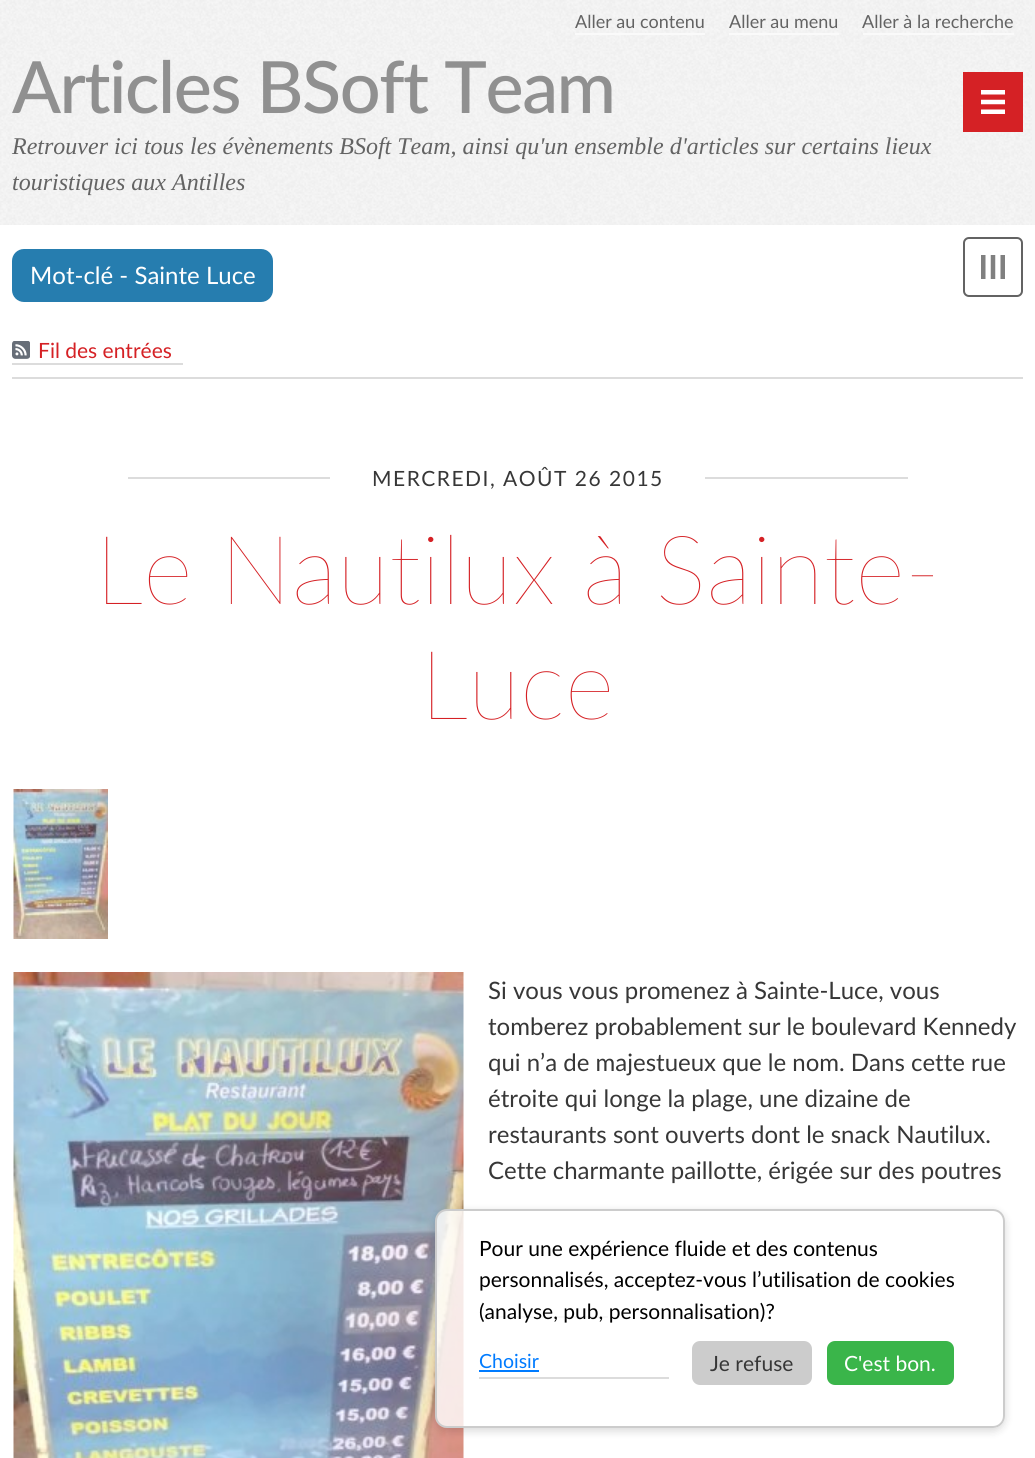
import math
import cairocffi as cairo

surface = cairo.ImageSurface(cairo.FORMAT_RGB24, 1035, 1458)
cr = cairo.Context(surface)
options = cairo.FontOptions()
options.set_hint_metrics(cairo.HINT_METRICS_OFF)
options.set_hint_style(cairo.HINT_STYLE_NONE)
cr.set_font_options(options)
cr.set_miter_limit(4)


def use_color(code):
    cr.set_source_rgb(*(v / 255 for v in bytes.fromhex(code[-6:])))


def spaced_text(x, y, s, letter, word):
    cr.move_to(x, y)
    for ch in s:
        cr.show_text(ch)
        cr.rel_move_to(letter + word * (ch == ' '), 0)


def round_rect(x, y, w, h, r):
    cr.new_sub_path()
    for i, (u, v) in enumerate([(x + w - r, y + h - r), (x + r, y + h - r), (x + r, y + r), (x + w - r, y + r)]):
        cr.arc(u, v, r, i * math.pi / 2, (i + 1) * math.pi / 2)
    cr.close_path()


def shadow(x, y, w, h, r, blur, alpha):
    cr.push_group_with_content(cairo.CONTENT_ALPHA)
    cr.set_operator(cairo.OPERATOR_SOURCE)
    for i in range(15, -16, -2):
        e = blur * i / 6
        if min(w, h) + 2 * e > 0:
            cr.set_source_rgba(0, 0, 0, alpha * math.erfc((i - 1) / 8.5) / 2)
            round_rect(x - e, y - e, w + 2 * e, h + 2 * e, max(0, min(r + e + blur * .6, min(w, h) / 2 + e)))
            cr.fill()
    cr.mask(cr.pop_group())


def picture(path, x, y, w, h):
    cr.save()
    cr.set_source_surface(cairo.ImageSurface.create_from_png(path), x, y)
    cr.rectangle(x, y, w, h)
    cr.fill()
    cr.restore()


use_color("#f3f3f3")
cr.paint()
picture("img1.png", 0, 0, 1032, 225)
cr.select_font_face("Lato")
cr.set_font_size(18)
use_color("#636363")
cr.move_to(575, 28)
cr.show_text("Aller au contenu")
use_color("#fafafa")
cr.rectangle(575, 33, 130, 2)
cr.fill()
use_color("#636363")
cr.move_to(729, 28)
cr.show_text("Aller au menu")
use_color("#fafafa")
cr.rectangle(729, 33, 110, 2)
cr.fill()
use_color("#636363")
cr.move_to(862, 28)
cr.show_text("Aller à la recherche")
use_color("#fafafa")
cr.rectangle(863, 33, 151, 2)
cr.fill()
cr.select_font_face("Lato Medium")
cr.set_font_size(72)
use_color("#909090")
spaced_text(12, 113, "Articles BSoft Team", -1.5, 0)
cr.select_font_face("Liberation Serif", cairo.FONT_SLANT_ITALIC)
cr.set_font_size(24)
use_color("#636363")
cr.move_to(12, 154)
cr.show_text("Retrouver ici tous les évènements BSoft Team, ainsi qu'un ensemble d'articles sur certains lieux")
cr.move_to(12, 190)
cr.show_text("touristiques aux Antilles")
use_color("#d52125")
cr.rectangle(963, 72, 60, 60)
cr.fill()
picture("img2.png", 981, 90, 24, 24)
use_color("#ffffff")
cr.rectangle(0, 225, 1035, 1233)
cr.fill()
picture("img3.png", 981, 255, 24, 24)
round_rect(964, 238, 58, 58, 5)
use_color("#636363")
cr.stroke()
use_color("#dcdcdc")
cr.rectangle(12, 377, 1011, 2)
cr.fill()
use_color("#267daf")
round_rect(12, 249, 261, 53, 12)
cr.fill()
cr.select_font_face("Lato")
use_color("#ffffff")
cr.move_to(30, 284)
cr.show_text("Mot-clé - Sainte Luce")
picture("img4.png", 12, 341, 18, 18)
cr.set_font_size(21)
use_color("#d52125")
cr.move_to(38, 358)
cr.show_text("Fil des entrées")
use_color("#dcdcdc")
cr.rectangle(12, 363, 171, 2)
cr.fill()
cr.rectangle(128, 477, 202, 2)
cr.fill()
use_color("#373737")
spaced_text(372, 486, "MERCREDI, AOÛT 26 2015", 1.5, 0)
use_color("#dcdcdc")
cr.rectangle(705, 477, 203, 2)
cr.fill()
cr.select_font_face("Lato ExtraLight")
cr.set_font_size(96)
use_color("#d52125")
cr.move_to(95, 604)
cr.show_text("Le Nautilux à Sainte-")
cr.move_to(420, 719)
cr.show_text("Luce")
picture("img5.png", 13, 789, 95, 150)
picture("img6.png", 13, 972, 451, 486)
cr.select_font_face("Lato")
cr.set_font_size(24)
use_color("#373737")
cr.move_to(488, 999)
cr.show_text("Si vous vous promenez à Sainte-Luce, vous")
cr.move_to(488, 1035)
cr.show_text("tomberez probablement sur le boulevard Kennedy")
cr.move_to(488, 1071)
cr.show_text("qui n’a de majestueux que le nom. Dans cette rue")
cr.move_to(488, 1107)
cr.show_text("étroite qui longe la plage, une dizaine de")
cr.move_to(488, 1143)
cr.show_text("restaurants sont ouverts dont le snack Nautilux.")
cr.move_to(488, 1179)
cr.show_text("Cette charmante paillotte, érigée sur des poutres")
use_color("#dcdcdc")
cr.rectangle(488, 1316, 120, 2)
cr.fill()
cr.save()
cr.set_fill_rule(cairo.FILL_RULE_EVEN_ODD)
cr.new_path()
cr.move_to(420, 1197)
cr.line_to(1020, 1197)
cr.line_to(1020, 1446)
cr.line_to(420, 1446)
cr.close_path()
cr.move_to(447, 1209)
cr.line_to(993, 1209)
cr.curve_to(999.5, 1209, 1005, 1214.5, 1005, 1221)
cr.line_to(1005, 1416)
cr.curve_to(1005, 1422.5, 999.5, 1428, 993, 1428)
cr.line_to(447, 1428)
cr.curve_to(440.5, 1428, 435, 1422.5, 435, 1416)
cr.line_to(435, 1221)
cr.curve_to(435, 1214.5, 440.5, 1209, 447, 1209)
cr.close_path()
cr.clip()
use_color("#000000")
shadow(435, 1212, 570, 219, 12, 4.5, 0.15)
cr.restore()
cr.set_source_rgba(1, 1, 1, 0.8)
round_rect(436, 1210, 568, 217, 11)
cr.fill_preserve()
use_color("#cccccc")
cr.stroke()
cr.set_font_size(21)
use_color("#000000")
cr.move_to(479, 1256)
cr.show_text("Pour une expérience fluide et des contenus")
cr.move_to(479, 1287)
cr.show_text("personnalisés, acceptez-vous l’utilisation de cookies")
cr.move_to(479, 1319)
cr.show_text("(analyse, pub, personnalisation)?")
use_color("#dcdcdc")
cr.rectangle(479, 1377, 190, 2)
cr.fill()
cr.set_font_size(19.5)
use_color("#007bff")
cr.move_to(479, 1368)
cr.show_text("Choisir")
cr.rectangle(479, 1370, 60, 2)
cr.fill()
use_color("#cccccc")
round_rect(692, 1341, 120, 44, 8)
cr.fill()
cr.set_font_size(21)
use_color("#373737")
cr.move_to(710, 1371)
cr.show_text("Je refuse")
use_color("#3ab54a")
round_rect(827, 1341, 127, 44, 8)
cr.fill()
use_color("#ffffff")
cr.move_to(844, 1371)
cr.show_text("C'est bon.")
surface.write_to_png("result.png")
